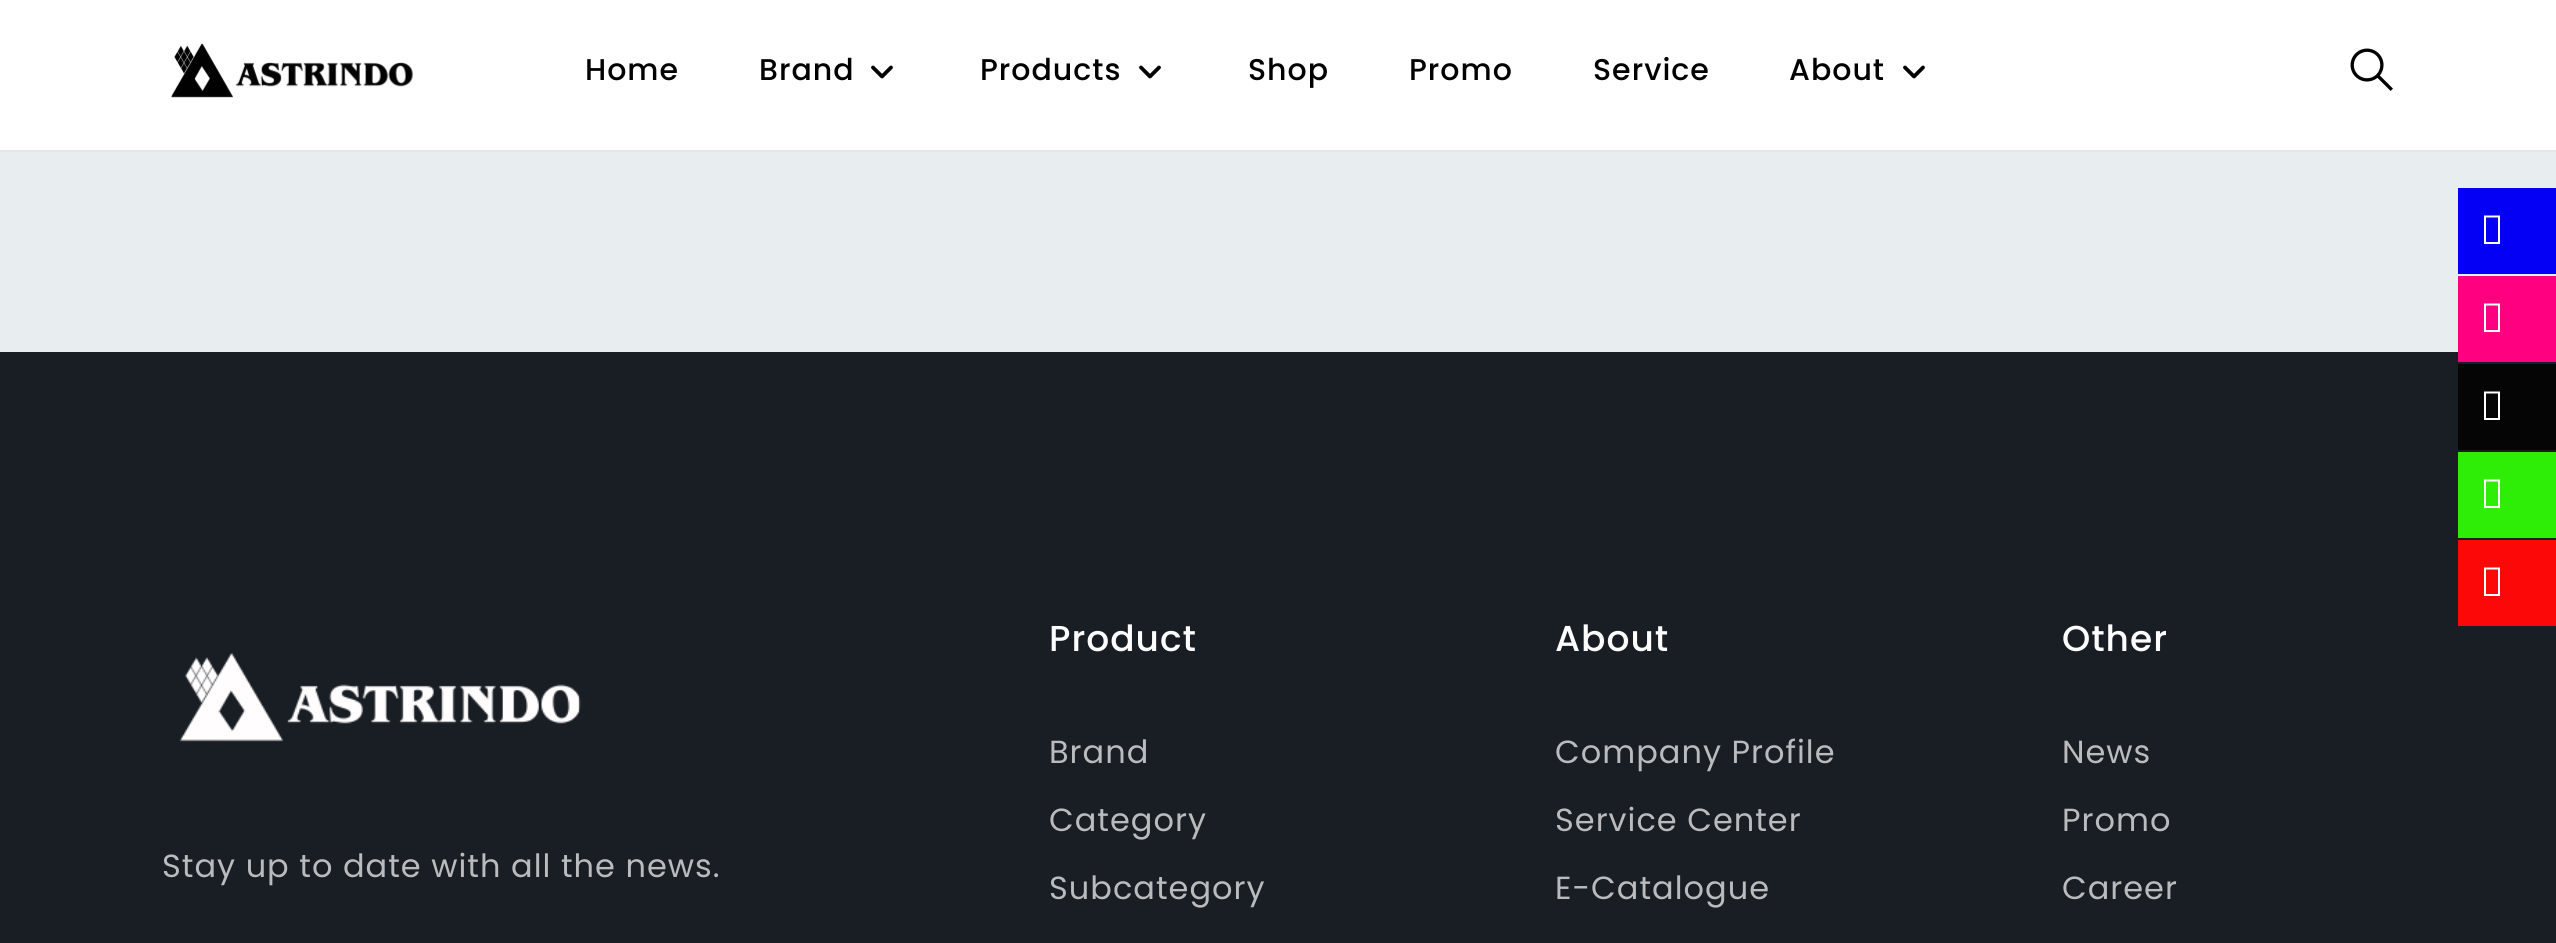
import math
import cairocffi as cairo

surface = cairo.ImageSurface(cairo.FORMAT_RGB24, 2556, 943)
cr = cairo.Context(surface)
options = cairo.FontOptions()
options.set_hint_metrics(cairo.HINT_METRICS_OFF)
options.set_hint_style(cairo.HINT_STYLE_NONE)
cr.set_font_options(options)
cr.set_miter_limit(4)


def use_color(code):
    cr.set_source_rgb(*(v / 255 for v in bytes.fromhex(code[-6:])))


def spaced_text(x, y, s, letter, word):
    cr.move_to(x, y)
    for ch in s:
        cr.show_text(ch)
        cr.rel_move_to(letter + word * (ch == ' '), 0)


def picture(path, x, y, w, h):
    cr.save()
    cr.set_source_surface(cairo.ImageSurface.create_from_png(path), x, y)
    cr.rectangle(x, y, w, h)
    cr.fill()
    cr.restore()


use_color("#e8eef0")
cr.paint()
use_color("#ffffff")
cr.rectangle(0, 0, 2556, 150)
cr.fill()
use_color("#e6e6e6")
cr.rectangle(0, 150, 2556, 2)
cr.fill()
picture("img1.png", 171, 43, 242, 55)
cr.select_font_face("Poppins Medium")
cr.set_font_size(30)
use_color("#000000")
spaced_text(585, 80, "Home", 1, 0)
spaced_text(759, 80, "Brand", 1, 0)
cr.new_path()
cr.move_to(873, 67.5)
cr.line_to(882, 76.5)
cr.line_to(891, 67.5)
cr.set_line_width(3.8)
cr.set_line_cap(cairo.LINE_CAP_ROUND)
cr.set_line_join(cairo.LINE_JOIN_ROUND)
cr.stroke()
spaced_text(980, 80, "Products", 1, 0)
cr.new_path()
cr.move_to(1141, 67.5)
cr.line_to(1150, 76.5)
cr.line_to(1159, 67.5)
cr.stroke()
spaced_text(1248, 80, "Shop", 1, 0)
spaced_text(1409, 80, "Promo", 1, 0)
spaced_text(1593, 80, "Service", 1, 0)
spaced_text(1789, 80, "About", 1, 0)
cr.new_path()
cr.move_to(1905, 67.5)
cr.line_to(1914, 76.5)
cr.line_to(1923, 67.5)
cr.stroke()
picture("img2.png", 2350, 48, 43, 43)
use_color("#191e24")
cr.rectangle(0, 352, 2556, 591)
cr.fill()
picture("img3.png", 179, 653, 402, 89)
cr.select_font_face("Poppins")
cr.set_font_size(32)
use_color("#b9bbbd")
spaced_text(162, 877, "Stay up to date with all the news.", 1, 0)
cr.select_font_face("Poppins Medium")
cr.set_font_size(36)
use_color("#fefefe")
spaced_text(1049, 651, "Product", 1, 0)
cr.select_font_face("Poppins")
cr.set_font_size(32)
use_color("#b9bbbd")
spaced_text(1049, 763, "Brand", 1, 0)
spaced_text(1049, 831, "Category", 1, 0)
spaced_text(1049, 899, "Subcategory", 1, 0)
cr.select_font_face("Poppins Medium")
cr.set_font_size(36)
use_color("#fefefe")
spaced_text(1555, 651, "About", 1, 0)
cr.select_font_face("Poppins")
cr.set_font_size(32)
use_color("#b9bbbd")
spaced_text(1555, 763, "Company Profile", 1, 0)
spaced_text(1555, 831, "Service Center", 1, 0)
spaced_text(1555, 899, "E-Catalogue", 1, 0)
cr.select_font_face("Poppins Medium")
cr.set_font_size(36)
use_color("#fefefe")
spaced_text(2062, 651, "Other", 1, 0)
cr.select_font_face("Poppins")
cr.set_font_size(32)
use_color("#b9bbbd")
spaced_text(2062, 763, "News", 1, 0)
spaced_text(2062, 831, "Promo", 1, 0)
spaced_text(2062, 899, "Career", 1, 0)
use_color("#0400f5")
cr.rectangle(2458, 188, 98, 86)
cr.fill()
use_color("#ffffff")
cr.new_path()
cr.move_to(2484, 244)
cr.line_to(2484, 215.5)
cr.line_to(2500, 215.5)
cr.line_to(2500, 244)
cr.close_path()
cr.move_to(2486, 242)
cr.line_to(2498, 242)
cr.line_to(2498, 217.5)
cr.line_to(2486, 217.5)
cr.close_path()
cr.fill()
use_color("#ff0080")
cr.rectangle(2458, 276, 98, 86)
cr.fill()
use_color("#ffffff")
cr.new_path()
cr.move_to(2484, 332)
cr.line_to(2484, 303.5)
cr.line_to(2500, 303.5)
cr.line_to(2500, 332)
cr.close_path()
cr.move_to(2486, 330)
cr.line_to(2498, 330)
cr.line_to(2498, 305.5)
cr.line_to(2486, 305.5)
cr.close_path()
cr.fill()
use_color("#050505")
cr.rectangle(2458, 364, 98, 86)
cr.fill()
use_color("#ffffff")
cr.new_path()
cr.move_to(2484, 420)
cr.line_to(2484, 391.5)
cr.line_to(2500, 391.5)
cr.line_to(2500, 420)
cr.close_path()
cr.move_to(2486, 418)
cr.line_to(2498, 418)
cr.line_to(2498, 393.5)
cr.line_to(2486, 393.5)
cr.close_path()
cr.fill()
use_color("#2eed07")
cr.rectangle(2458, 452, 98, 86)
cr.fill()
use_color("#ffffff")
cr.new_path()
cr.move_to(2484, 508)
cr.line_to(2484, 479.5)
cr.line_to(2500, 479.5)
cr.line_to(2500, 508)
cr.close_path()
cr.move_to(2486, 506)
cr.line_to(2498, 506)
cr.line_to(2498, 481.5)
cr.line_to(2486, 481.5)
cr.close_path()
cr.fill()
use_color("#fd0808")
cr.rectangle(2458, 540, 98, 86)
cr.fill()
use_color("#ffffff")
cr.new_path()
cr.move_to(2484, 596)
cr.line_to(2484, 567.5)
cr.line_to(2500, 567.5)
cr.line_to(2500, 596)
cr.close_path()
cr.move_to(2486, 594)
cr.line_to(2498, 594)
cr.line_to(2498, 569.5)
cr.line_to(2486, 569.5)
cr.close_path()
cr.fill()
surface.write_to_png("result.png")
